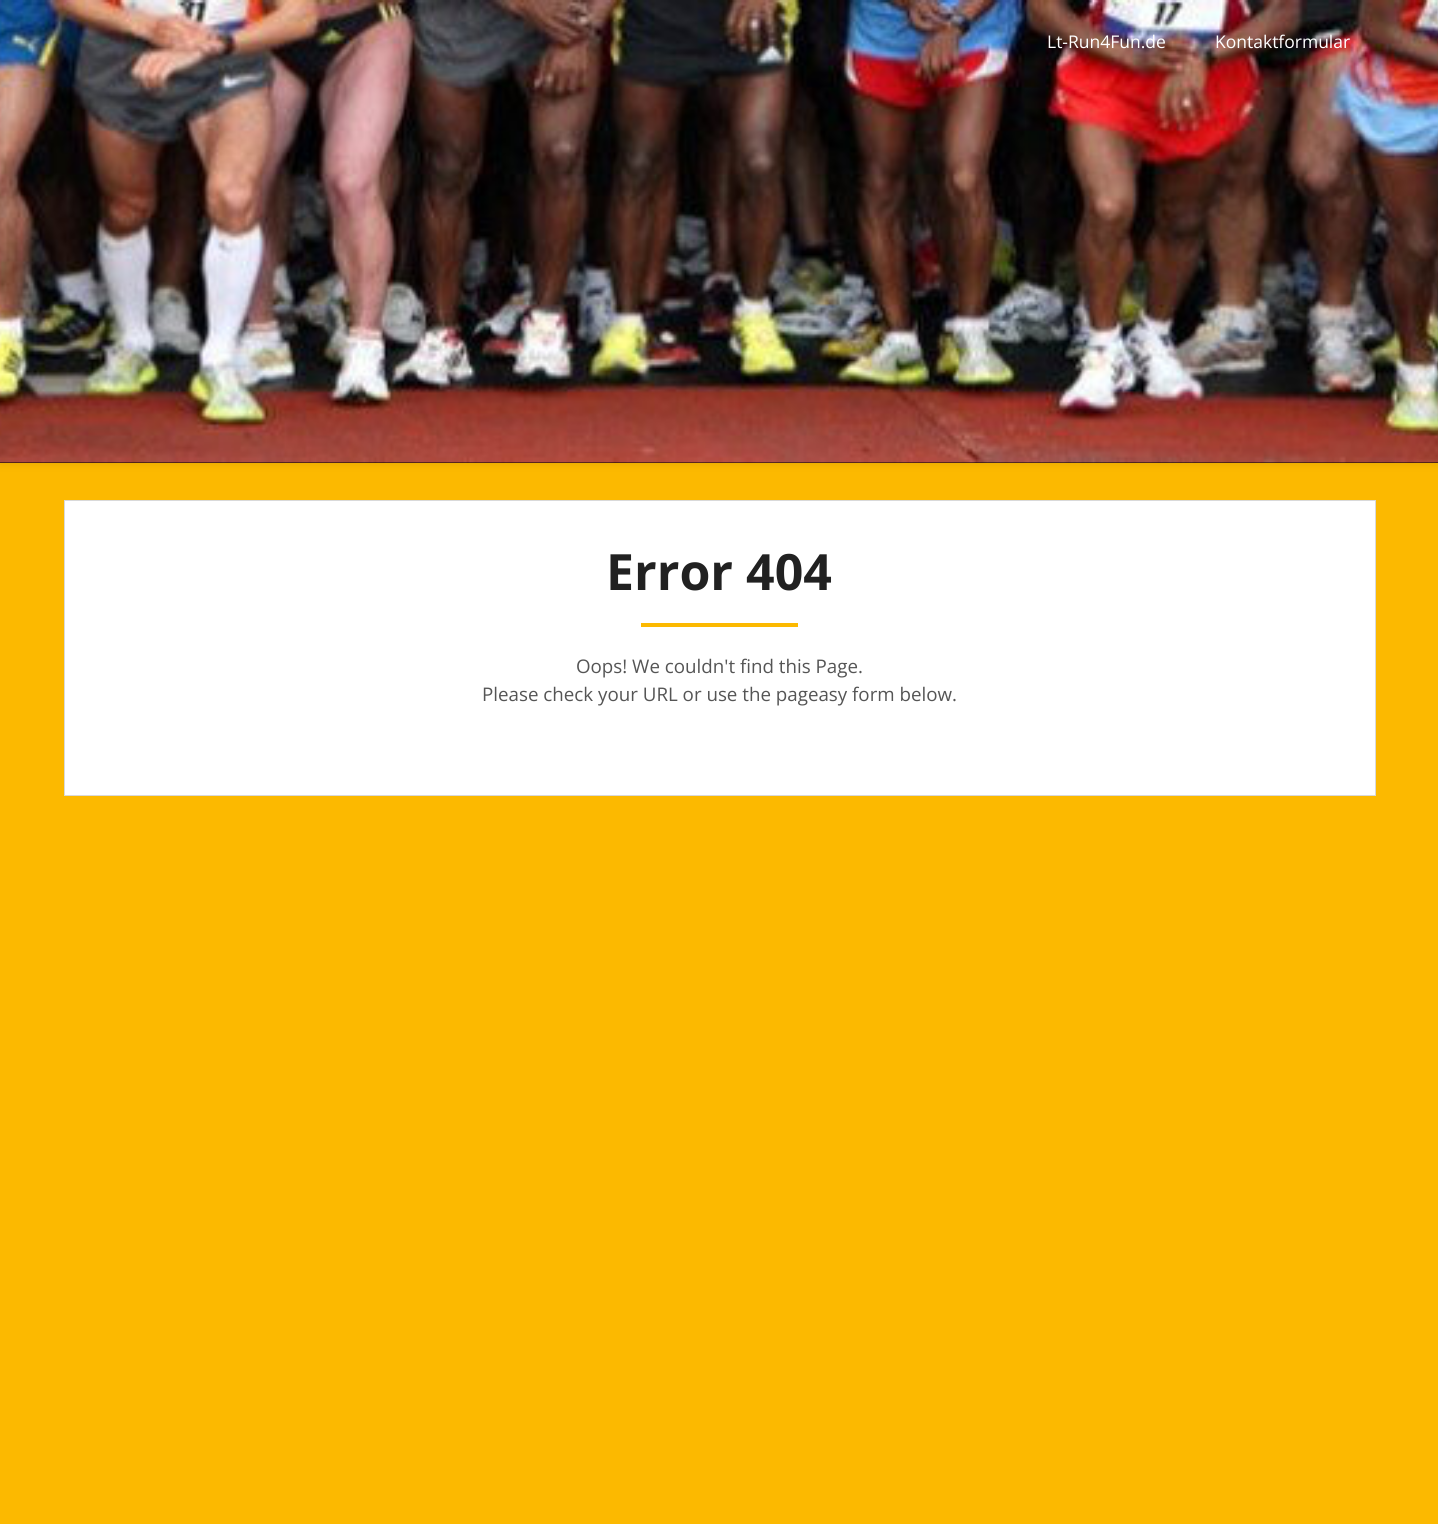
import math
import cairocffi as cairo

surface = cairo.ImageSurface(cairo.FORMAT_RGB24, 1438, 1524)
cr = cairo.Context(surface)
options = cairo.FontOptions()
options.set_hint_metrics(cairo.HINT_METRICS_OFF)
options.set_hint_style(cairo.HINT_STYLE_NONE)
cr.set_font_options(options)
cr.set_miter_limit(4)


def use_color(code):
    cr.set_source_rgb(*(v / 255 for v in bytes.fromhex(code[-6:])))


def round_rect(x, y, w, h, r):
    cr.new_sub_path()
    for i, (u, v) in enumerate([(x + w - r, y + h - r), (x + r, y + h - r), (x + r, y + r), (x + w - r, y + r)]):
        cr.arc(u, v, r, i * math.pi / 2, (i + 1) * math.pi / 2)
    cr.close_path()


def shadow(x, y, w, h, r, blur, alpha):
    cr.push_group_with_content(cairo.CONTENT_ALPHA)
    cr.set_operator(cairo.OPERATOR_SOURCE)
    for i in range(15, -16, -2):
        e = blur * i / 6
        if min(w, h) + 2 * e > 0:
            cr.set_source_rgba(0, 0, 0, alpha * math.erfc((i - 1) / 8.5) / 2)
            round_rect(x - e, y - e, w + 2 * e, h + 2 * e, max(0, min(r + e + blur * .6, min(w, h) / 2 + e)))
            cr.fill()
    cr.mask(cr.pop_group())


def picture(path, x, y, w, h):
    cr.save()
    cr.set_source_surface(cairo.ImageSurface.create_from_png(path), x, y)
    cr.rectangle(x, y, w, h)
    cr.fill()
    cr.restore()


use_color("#fcb900")
cr.paint()
use_color("#000000")
shadow(0, 0, 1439, 463, 0, 5, 0.1)
use_color("#000000")
cr.rectangle(0, 462, 1438, 1)
cr.fill()
picture("img1.png", 0, 0, 1438, 463)
cr.select_font_face("Open Sans")
cr.set_font_size(17.5)
use_color("#ffffff")
cr.move_to(1047, 48)
cr.show_text("Lt-Run4Fun.de")
cr.move_to(1215, 48)
cr.show_text("Kontaktformular")
cr.rectangle(64.5, 500.5, 1311, 295)
cr.fill_preserve()
use_color("#d9d9d9")
cr.set_line_width(1)
cr.stroke()
cr.select_font_face("Open Sans", cairo.FONT_SLANT_NORMAL, cairo.FONT_WEIGHT_BOLD)
cr.set_font_size(50)
use_color("#212121")
cr.move_to(606, 590)
cr.show_text("Error 404")
use_color("#fcb900")
cr.rectangle(641, 623, 157, 4)
cr.fill()
cr.select_font_face("Open Sans")
cr.set_font_size(18.75)
use_color("#555555")
cr.move_to(576, 673)
cr.show_text("Oops! We couldn't find this Page.")
cr.move_to(482, 701)
cr.show_text("Please check your URL or use the pageasy form below.")
surface.write_to_png("result.png")
